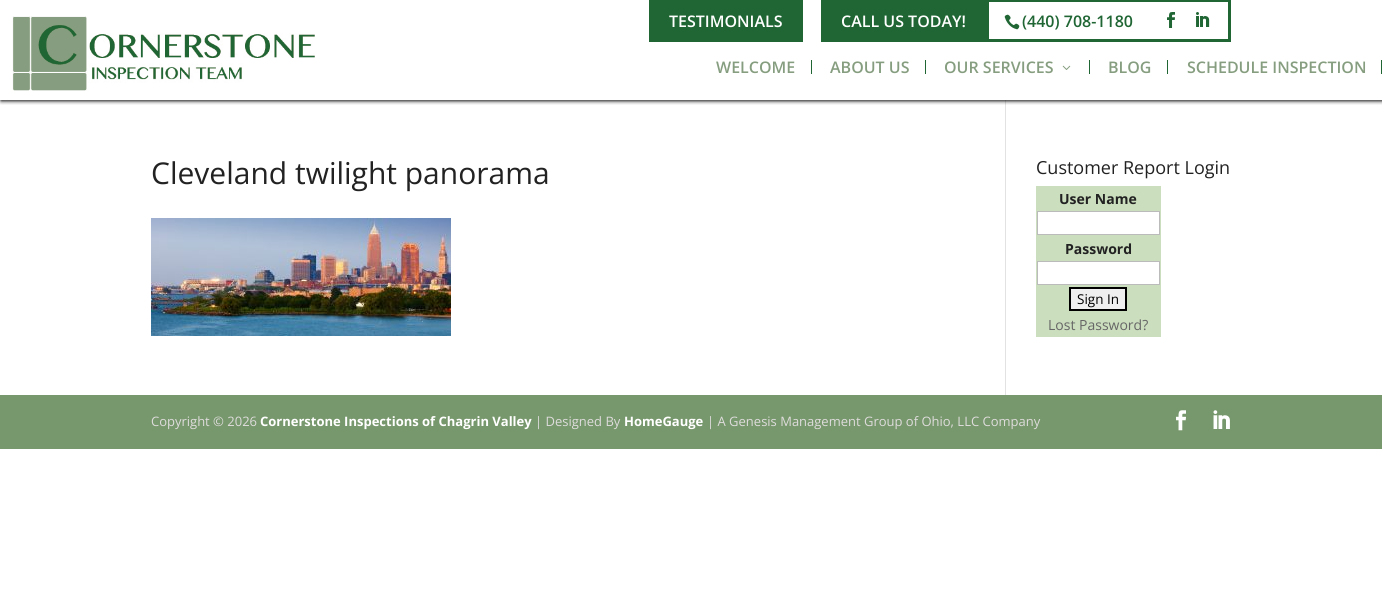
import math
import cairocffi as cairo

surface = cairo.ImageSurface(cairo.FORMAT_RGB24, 1382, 608)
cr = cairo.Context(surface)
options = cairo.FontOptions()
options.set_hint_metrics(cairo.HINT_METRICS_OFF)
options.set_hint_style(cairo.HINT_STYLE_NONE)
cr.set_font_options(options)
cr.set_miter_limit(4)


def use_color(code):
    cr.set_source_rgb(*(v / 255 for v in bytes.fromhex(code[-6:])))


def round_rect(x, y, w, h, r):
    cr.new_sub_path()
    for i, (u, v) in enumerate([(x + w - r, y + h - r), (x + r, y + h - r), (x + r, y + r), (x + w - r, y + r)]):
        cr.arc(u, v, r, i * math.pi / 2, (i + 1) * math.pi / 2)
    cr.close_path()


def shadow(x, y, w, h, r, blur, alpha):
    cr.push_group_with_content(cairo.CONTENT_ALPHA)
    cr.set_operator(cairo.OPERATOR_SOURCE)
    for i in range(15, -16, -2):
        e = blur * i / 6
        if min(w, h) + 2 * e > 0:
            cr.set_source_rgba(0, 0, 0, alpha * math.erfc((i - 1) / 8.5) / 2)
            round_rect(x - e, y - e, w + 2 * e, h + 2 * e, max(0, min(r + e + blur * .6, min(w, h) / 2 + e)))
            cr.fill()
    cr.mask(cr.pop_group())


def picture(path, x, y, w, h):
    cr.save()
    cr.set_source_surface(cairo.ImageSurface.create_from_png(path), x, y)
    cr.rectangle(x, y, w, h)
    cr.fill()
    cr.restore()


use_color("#ffffff")
cr.paint()
use_color("#e2e2e2")
cr.rectangle(1005, 100, 1, 295)
cr.fill()
cr.save()
cr.rectangle(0, 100, 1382, 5)
cr.clip()
use_color("#000000")
shadow(1, 1, 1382, 100, 0, 2, 1)
cr.restore()
use_color("#206634")
cr.rectangle(649, 0, 154, 42)
cr.fill()
cr.select_font_face("Open Sans SemiBold")
cr.set_font_size(16)
use_color("#ffffff")
cr.move_to(669, 27)
cr.show_text("TESTIMONIALS")
use_color("#206634")
cr.rectangle(821, 0, 165, 42)
cr.fill()
use_color("#ffffff")
cr.move_to(841, 27)
cr.show_text("CALL US TODAY!")
cr.rectangle(987.5, 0.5, 242, 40)
use_color("#206634")
cr.set_line_width(3)
cr.stroke()
picture("img1.png", 1004, 14, 16, 16)
cr.move_to(1022, 27)
cr.show_text("(440) 708-1180")
picture("img2.png", 1167, 12, 8, 16)
picture("img3.png", 1196, 12, 14, 15)
picture("img4.png", 12, 16, 303, 75)
cr.rectangle(811, 60, 1, 14)
cr.fill()
use_color("#869e7f")
cr.move_to(716, 73)
cr.show_text("WELCOME")
use_color("#206634")
cr.rectangle(925, 60, 1, 14)
cr.fill()
use_color("#869e7f")
cr.move_to(830, 73)
cr.show_text("ABOUT US")
use_color("#206634")
cr.rectangle(1089, 60, 1, 14)
cr.fill()
use_color("#869e7f")
cr.move_to(944, 73)
cr.show_text("OUR SERVICES")
picture("img5.png", 1062, 65, 9, 5)
use_color("#206634")
cr.rectangle(1167, 60, 1, 14)
cr.fill()
use_color("#869e7f")
cr.move_to(1108, 73)
cr.show_text("BLOG")
use_color("#206634")
cr.rectangle(1381, 60, 1, 14)
cr.fill()
use_color("#869e7f")
cr.move_to(1187, 73)
cr.show_text("SCHEDULE INSPECTION")
cr.select_font_face("Open Sans")
cr.set_font_size(30)
use_color("#222222")
cr.move_to(151, 184)
cr.show_text("Cleveland twilight panorama")
picture("img6.png", 151, 218, 300, 118)
cr.set_font_size(18)
cr.move_to(1036, 174)
cr.show_text("Customer Report Login")
use_color("#cbdebe")
cr.rectangle(1036, 186, 125, 151)
cr.fill()
cr.select_font_face("Open Sans", cairo.FONT_SLANT_NORMAL, cairo.FONT_WEIGHT_BOLD)
cr.set_font_size(14)
use_color("#222222")
cr.move_to(1059, 204)
cr.show_text("User Name")
use_color("#ffffff")
cr.rectangle(1037.5, 211.5, 122, 23)
cr.fill_preserve()
use_color("#bbbbbb")
cr.set_line_width(1)
cr.stroke()
use_color("#222222")
cr.move_to(1065, 254)
cr.show_text("Password")
use_color("#ffffff")
cr.rectangle(1037.5, 261.5, 122, 23)
cr.fill_preserve()
use_color("#bbbbbb")
cr.stroke()
use_color("#efefef")
cr.rectangle(1070, 288, 56, 22)
cr.fill_preserve()
use_color("#000000")
cr.set_line_width(2)
cr.stroke()
cr.select_font_face("Open Sans")
cr.set_font_size(13.5)
cr.move_to(1077, 304)
cr.show_text("Sign In")
cr.set_font_size(14)
use_color("#666666")
cr.move_to(1048, 330)
cr.show_text("Lost Password?")
use_color("#77976c")
cr.rectangle(0, 395, 1382, 54)
cr.fill()
cr.set_font_size(13)
use_color("#dedcdc")
cr.move_to(151, 426)
cr.show_text("Copyright © 2026")
cr.select_font_face("Open Sans", cairo.FONT_SLANT_NORMAL, cairo.FONT_WEIGHT_BOLD)
use_color("#ffffff")
cr.move_to(260, 426)
cr.show_text("Cornerstone Inspections of Chagrin Valley")
cr.select_font_face("Open Sans")
use_color("#dedcdc")
cr.move_to(535, 426)
cr.show_text("| Designed By")
cr.select_font_face("Open Sans", cairo.FONT_SLANT_NORMAL, cairo.FONT_WEIGHT_BOLD)
use_color("#ffffff")
cr.move_to(624, 426)
cr.show_text("HomeGauge")
cr.select_font_face("Open Sans")
use_color("#dedcdc")
cr.move_to(707, 426)
cr.show_text("| A Genesis Management Group of Ohio, LLC Company")
picture("img7.png", 1176, 410, 10, 21)
picture("img8.png", 1213, 410, 17, 19)
surface.write_to_png("result.png")
